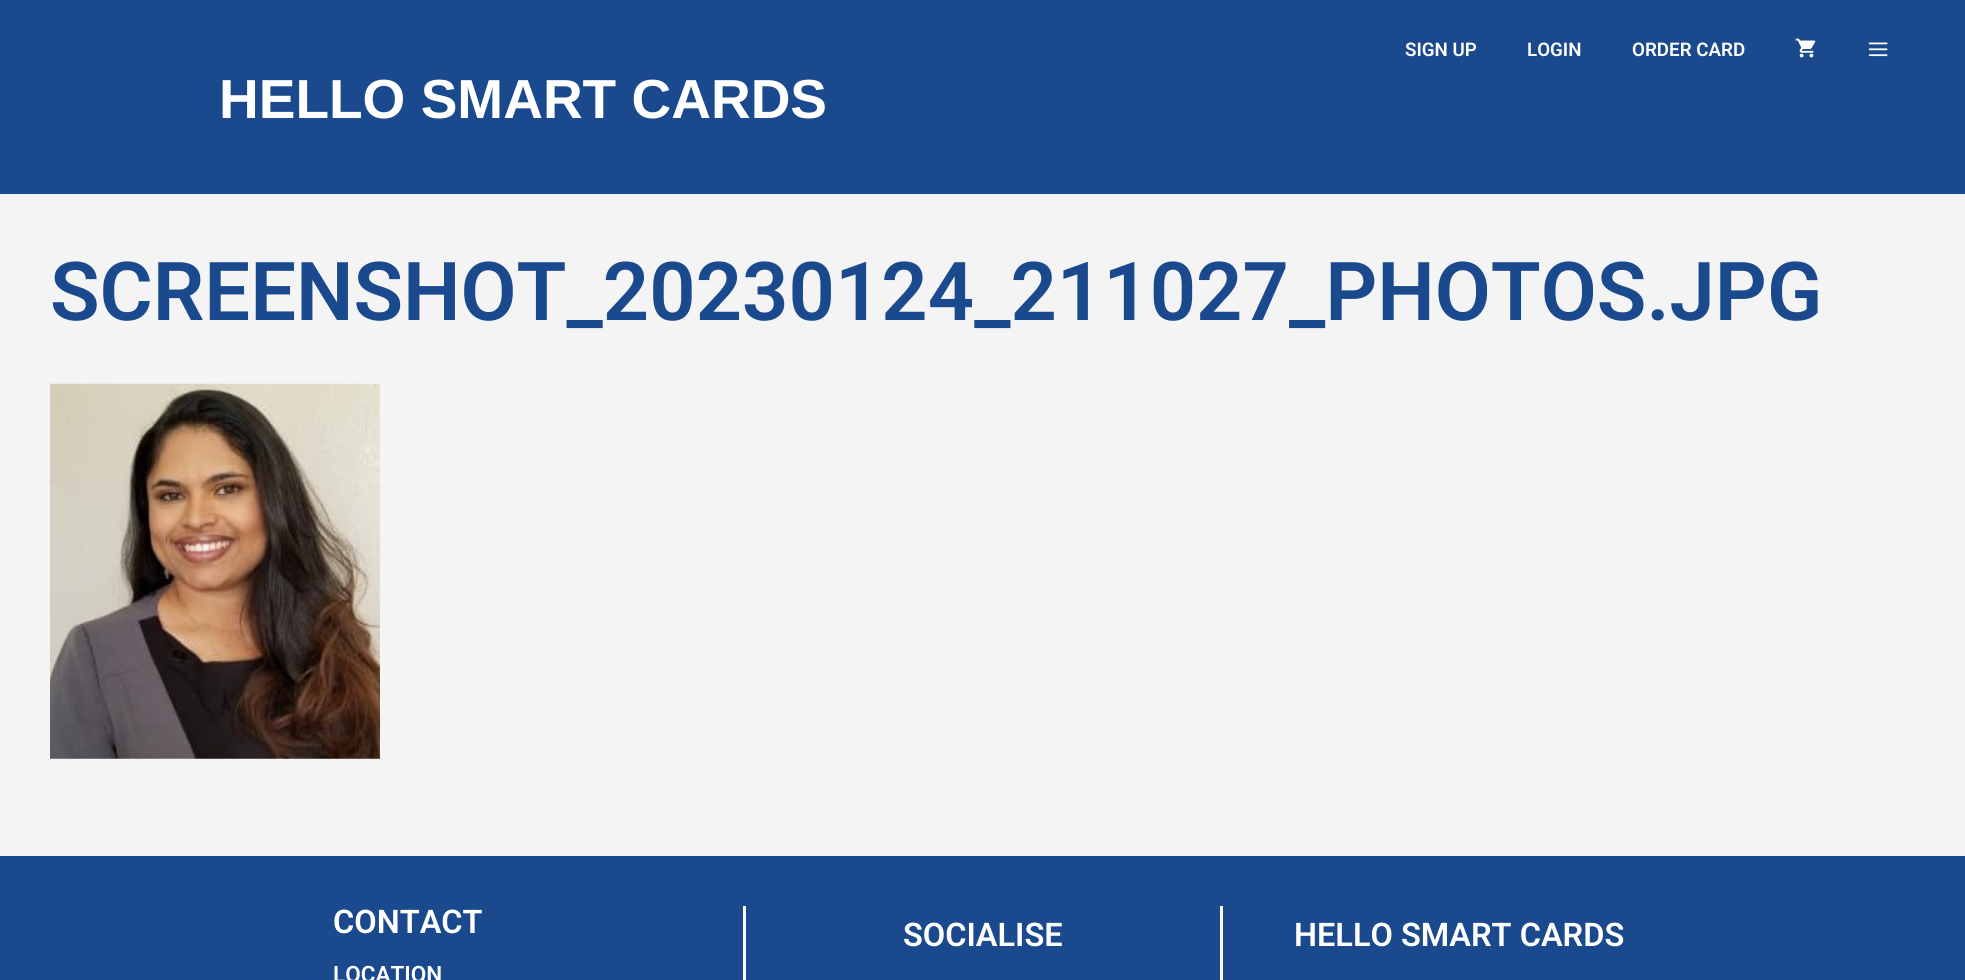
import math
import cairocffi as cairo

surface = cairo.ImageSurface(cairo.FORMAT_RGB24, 1965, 980)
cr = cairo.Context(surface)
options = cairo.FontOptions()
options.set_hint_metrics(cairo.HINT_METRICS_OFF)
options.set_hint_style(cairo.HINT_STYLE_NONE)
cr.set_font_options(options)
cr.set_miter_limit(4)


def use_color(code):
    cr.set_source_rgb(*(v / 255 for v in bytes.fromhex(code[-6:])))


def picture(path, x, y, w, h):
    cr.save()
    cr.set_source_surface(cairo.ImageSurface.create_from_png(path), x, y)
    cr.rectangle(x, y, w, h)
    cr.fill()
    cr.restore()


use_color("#f4f4f4")
cr.paint()
use_color("#1a4a8d")
cr.rectangle(0, 0, 1965, 194)
cr.fill()
cr.select_font_face("Roboto SemiBold")
cr.set_font_size(18.75)
use_color("#ffffff")
cr.move_to(1405, 56)
cr.show_text("SIGN UP")
cr.move_to(1527, 56)
cr.show_text("LOGIN")
cr.move_to(1632, 56)
cr.show_text("ORDER CARD")
picture("img1.png", 1795, 38, 21, 20)
picture("img2.png", 1868, 42, 20, 15)
cr.select_font_face("Liberation Sans", cairo.FONT_SLANT_NORMAL, cairo.FONT_WEIGHT_BOLD)
cr.set_font_size(55)
cr.move_to(219, 118)
cr.show_text("HELLO SMART CARDS")
cr.select_font_face("Roboto SemiBold")
cr.set_font_size(81.25)
use_color("#1a4a8d")
cr.move_to(50, 320)
cr.show_text("SCREENSHOT_20230124_211027_PHOTOS.JPG")
picture("img3.png", 50, 383, 330, 376)
cr.rectangle(0, 856, 1965, 124)
cr.fill()
use_color("#ffffff")
cr.rectangle(743, 906, 3, 74)
cr.fill()
cr.set_font_size(32.5)
cr.move_to(333, 933)
cr.show_text("CONTACT")
cr.set_font_size(22.5)
cr.move_to(333, 982)
cr.show_text("LOCATION")
cr.set_font_size(32.5)
cr.move_to(903, 946)
cr.show_text("SOCIALISE")
cr.rectangle(1220, 906, 3, 74)
cr.fill()
cr.move_to(1294, 946)
cr.show_text("HELLO SMART CARDS")
surface.write_to_png("result.png")
